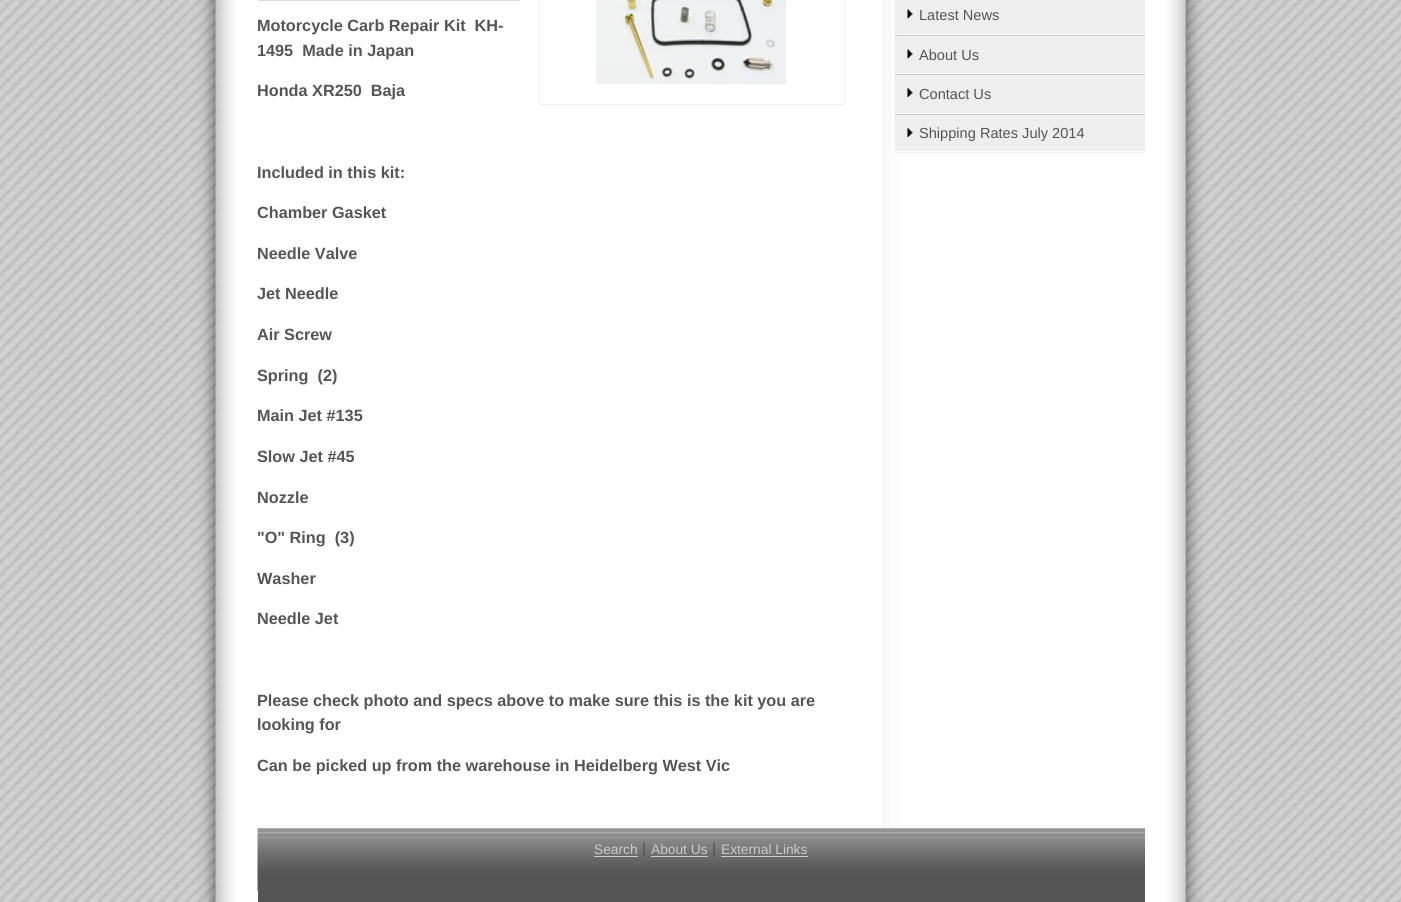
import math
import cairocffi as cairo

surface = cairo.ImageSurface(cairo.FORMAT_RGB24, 1401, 902)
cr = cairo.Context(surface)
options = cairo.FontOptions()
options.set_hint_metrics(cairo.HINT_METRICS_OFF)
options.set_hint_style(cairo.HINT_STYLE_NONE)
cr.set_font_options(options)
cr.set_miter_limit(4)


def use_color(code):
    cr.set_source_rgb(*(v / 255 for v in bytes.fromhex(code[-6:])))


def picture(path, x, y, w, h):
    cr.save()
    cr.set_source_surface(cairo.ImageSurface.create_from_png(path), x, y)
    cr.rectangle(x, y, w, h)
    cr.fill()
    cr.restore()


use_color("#ffffff")
cr.paint()
picture("img1.png", 0, 0, 1401, 902)
use_color("#dddddd")
cr.rectangle(258, 0, 262, 1)
cr.fill()
cr.rectangle(539.5, -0.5, 305, 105)
use_color("#eeeeee")
cr.set_line_width(1)
cr.stroke()
picture("img2.png", 596, 0, 191, 85)
cr.select_font_face("Liberation Sans", cairo.FONT_SLANT_NORMAL, cairo.FONT_WEIGHT_BOLD)
cr.set_font_size(16.25)
use_color("#555555")
cr.move_to(257, 31)
cr.show_text("Motorcycle Carb Repair Kit  KH-")
cr.move_to(257, 56)
cr.show_text("1495  Made in Japan")
cr.move_to(257, 96)
cr.show_text("Honda XR250  Baja")
cr.move_to(257, 178)
cr.show_text("Included in this kit:")
cr.move_to(257, 218)
cr.show_text("Chamber Gasket")
cr.move_to(257, 259)
cr.show_text("Needle Valve")
cr.move_to(257, 299)
cr.show_text("Jet Needle")
cr.move_to(257, 340)
cr.show_text("Air Screw")
cr.move_to(257, 381)
cr.show_text("Spring  (2)")
cr.move_to(257, 421)
cr.show_text("Main Jet #135")
cr.move_to(257, 462)
cr.show_text("Slow Jet #45")
cr.move_to(257, 503)
cr.show_text("Nozzle")
cr.move_to(257, 543)
cr.show_text("\"O\" Ring  (3)")
cr.move_to(257, 584)
cr.show_text("Washer")
cr.move_to(257, 624)
cr.show_text("Needle Jet")
cr.move_to(257, 706)
cr.show_text("Please check photo and specs above to make sure this is the kit you are")
cr.move_to(257, 730)
cr.show_text("looking for")
cr.move_to(257, 771)
cr.show_text("Can be picked up from the warehouse in Heidelberg West Vic")
use_color("#eeeeee")
cr.rectangle(895, 0, 250, 34)
cr.fill()
picture("img3.png", 907, 9, 6, 10)
cr.select_font_face("Liberation Sans")
cr.set_font_size(14.6)
use_color("#555555")
cr.move_to(919, 20)
cr.show_text("Latest News")
use_color("#eeeeee")
cr.rectangle(895, 36, 250, 37)
cr.fill()
use_color("#cccccc")
cr.rectangle(895, 35, 250, 1)
cr.fill()
picture("img3.png", 907, 49, 6, 10)
use_color("#555555")
cr.move_to(919, 60)
cr.show_text("About Us")
use_color("#eeeeee")
cr.rectangle(895, 75, 250, 38)
cr.fill()
use_color("#cccccc")
cr.rectangle(895, 74, 250, 1)
cr.fill()
picture("img4.png", 907, 88, 6, 9)
use_color("#555555")
cr.move_to(919, 99)
cr.show_text("Contact Us")
use_color("#eeeeee")
cr.rectangle(895, 115, 250, 38)
cr.fill()
use_color("#cccccc")
cr.rectangle(895, 114, 250, 1)
cr.fill()
use_color("#ffffff")
cr.rectangle(895, 151, 250, 1)
cr.fill()
picture("img4.png", 907, 128, 6, 9)
use_color("#555555")
cr.move_to(919, 138)
cr.show_text("Shipping Rates July 2014")
cr.rectangle(258, 890, 887, 12)
cr.fill()
picture("img5.png", 257, 828, 888, 63)
cr.set_font_size(13.75)
use_color("#cccccc")
cr.move_to(594, 854)
cr.show_text("Search")
cr.rectangle(594, 856, 44, 1)
cr.fill()
cr.set_font_size(16.25)
use_color("#555555")
cr.move_to(642, 854)
cr.show_text("|")
cr.set_font_size(13.75)
use_color("#cccccc")
cr.move_to(651, 854)
cr.show_text("About Us")
cr.rectangle(651, 856, 57, 1)
cr.fill()
cr.set_font_size(16.25)
use_color("#555555")
cr.move_to(712, 854)
cr.show_text("|")
cr.set_font_size(13.75)
use_color("#cccccc")
cr.move_to(721, 854)
cr.show_text("External Links")
cr.rectangle(721, 856, 87, 1)
cr.fill()
surface.write_to_png("result.png")
